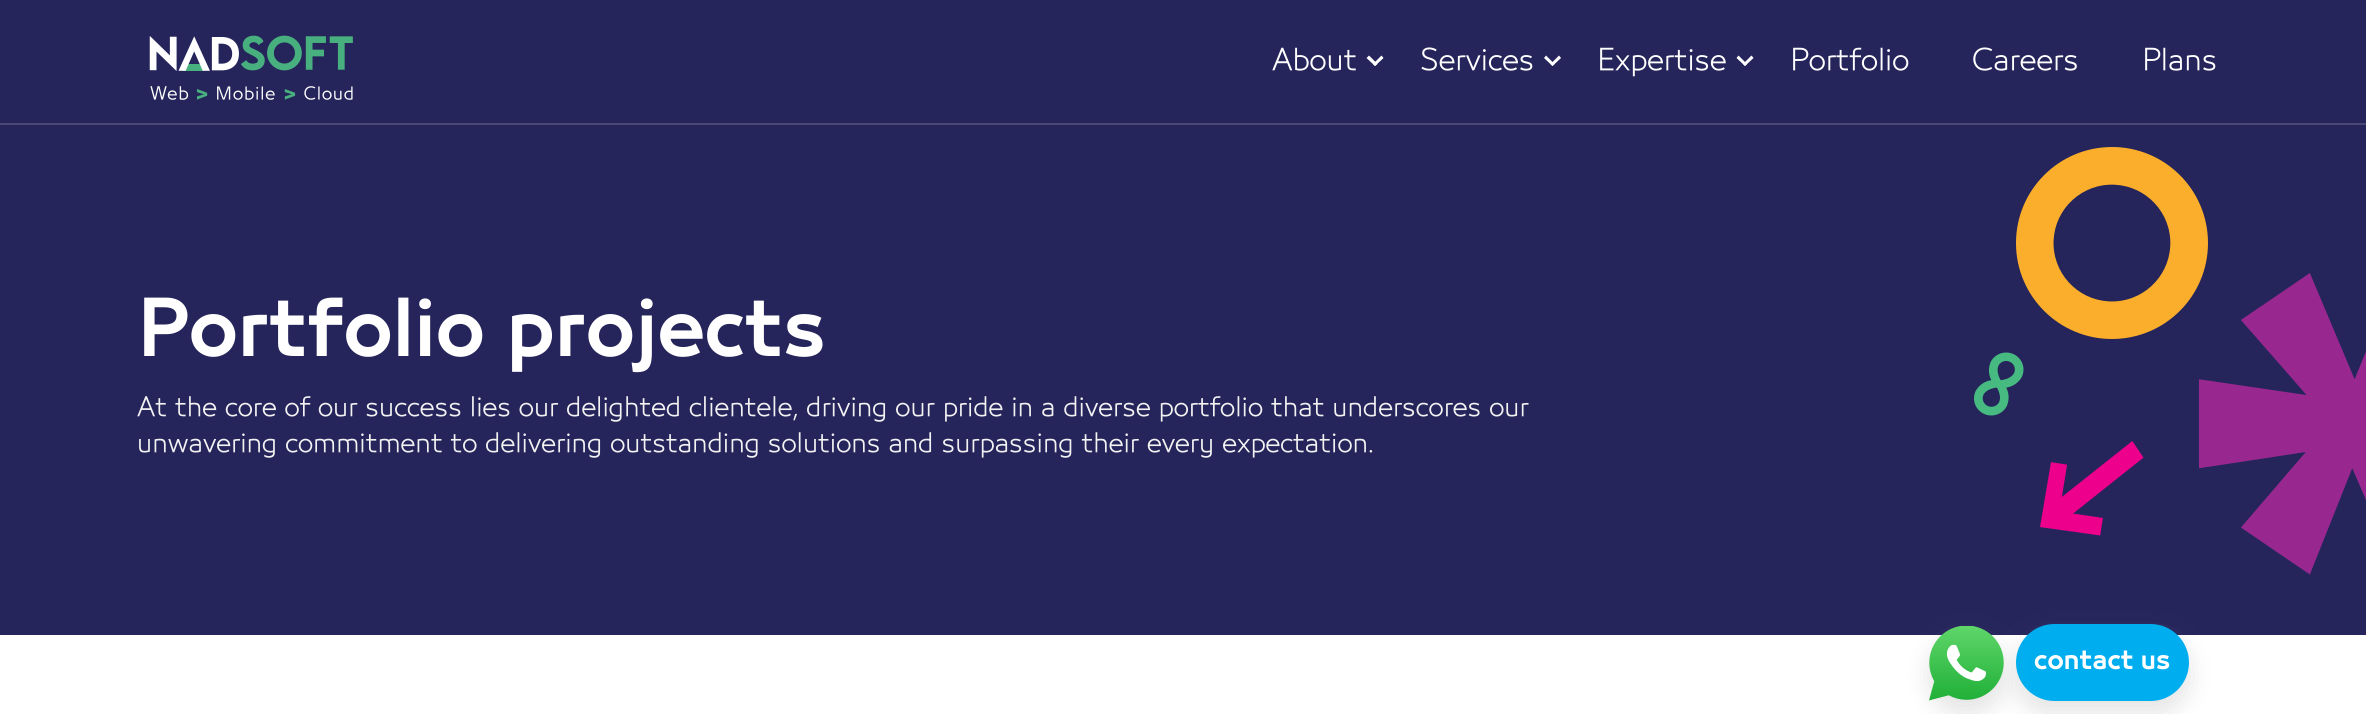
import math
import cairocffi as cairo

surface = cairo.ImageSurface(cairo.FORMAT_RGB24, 2366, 714)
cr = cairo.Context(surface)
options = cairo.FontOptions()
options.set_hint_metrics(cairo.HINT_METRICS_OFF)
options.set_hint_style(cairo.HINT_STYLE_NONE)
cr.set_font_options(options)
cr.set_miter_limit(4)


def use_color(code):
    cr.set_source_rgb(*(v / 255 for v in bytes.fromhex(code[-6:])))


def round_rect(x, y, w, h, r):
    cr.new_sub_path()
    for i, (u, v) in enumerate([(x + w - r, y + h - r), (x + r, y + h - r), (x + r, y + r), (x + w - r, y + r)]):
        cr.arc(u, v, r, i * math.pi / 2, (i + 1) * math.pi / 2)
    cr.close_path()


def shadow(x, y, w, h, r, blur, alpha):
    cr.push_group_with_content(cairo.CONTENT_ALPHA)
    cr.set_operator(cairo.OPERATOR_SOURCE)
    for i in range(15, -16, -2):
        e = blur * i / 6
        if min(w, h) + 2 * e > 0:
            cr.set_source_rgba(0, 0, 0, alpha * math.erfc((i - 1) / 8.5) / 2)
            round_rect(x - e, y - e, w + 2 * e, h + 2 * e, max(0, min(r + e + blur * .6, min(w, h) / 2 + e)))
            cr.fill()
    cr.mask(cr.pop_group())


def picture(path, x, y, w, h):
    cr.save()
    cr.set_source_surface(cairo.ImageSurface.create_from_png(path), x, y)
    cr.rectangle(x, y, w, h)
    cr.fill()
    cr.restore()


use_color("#ffffff")
cr.paint()
use_color("#25245b")
cr.rectangle(0, 0, 2366, 123)
cr.fill()
use_color("#4a4975")
cr.rectangle(0, 123, 2366, 2)
cr.fill()
picture("img1.png", 149, 35, 204, 65)
cr.select_font_face("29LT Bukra")
cr.set_font_size(27)
use_color("#ffffff")
cr.move_to(1272, 70)
cr.show_text("About")
cr.new_path()
cr.move_to(1375, 66)
cr.line_to(1366.5, 58)
cr.line_to(1369, 55.5)
cr.line_to(1377.5, 64)
cr.close_path()
cr.fill()
cr.new_path()
cr.move_to(1375, 66)
cr.line_to(1373, 64)
cr.line_to(1381.5, 55.5)
cr.line_to(1383.5, 58)
cr.close_path()
cr.fill()
cr.move_to(1420, 70)
cr.show_text("Services")
cr.new_path()
cr.move_to(1552.5, 66)
cr.line_to(1544, 58)
cr.line_to(1546, 55.5)
cr.line_to(1554.5, 64)
cr.close_path()
cr.fill()
cr.new_path()
cr.move_to(1552.5, 66)
cr.line_to(1550.5, 64)
cr.line_to(1559, 55.5)
cr.line_to(1561, 58)
cr.close_path()
cr.fill()
cr.move_to(1597, 70)
cr.show_text("Expertise")
cr.new_path()
cr.move_to(1745, 66)
cr.line_to(1736.5, 58)
cr.line_to(1738.5, 55.5)
cr.line_to(1747, 64)
cr.close_path()
cr.fill()
cr.new_path()
cr.move_to(1745, 66)
cr.line_to(1743, 64)
cr.line_to(1751.5, 55.5)
cr.line_to(1753.5, 58)
cr.close_path()
cr.fill()
cr.move_to(1790, 70)
cr.show_text("Portfolio")
cr.move_to(1972, 70)
cr.show_text("Careers")
cr.move_to(2142, 70)
cr.show_text("Plans")
use_color("#25245b")
cr.rectangle(0, 125, 2366, 510)
cr.fill()
cr.select_font_face("29LT Bukra", cairo.FONT_SLANT_NORMAL, cairo.FONT_WEIGHT_BOLD)
cr.set_font_size(72)
use_color("#ffffff")
cr.move_to(137, 356)
cr.show_text("Portfolio projects")
cr.select_font_face("29LT Bukra")
cr.set_font_size(24)
use_color("#f2f2f2")
cr.move_to(137, 416)
cr.show_text("At the core of our success lies our delighted clientele, driving our pride in a diverse portfolio that underscores our")
cr.move_to(137, 452)
cr.show_text("unwavering commitment to delivering outstanding solutions and surpassing their every expectation.")
picture("img2.png", 1974, 147, 392, 428)
use_color("#929191")
shadow(2016, 636, 173, 77, 38.5, 12, 0.25)
use_color("#00aeef")
round_rect(2016, 624, 173, 77, 38.5)
cr.fill()
use_color("#929191")
shadow(1929, 638, 75, 75, 37.5, 12, 0.25)
picture("img3.png", 1929, 626, 75, 75)
cr.select_font_face("29LT Bukra", cairo.FONT_SLANT_NORMAL, cairo.FONT_WEIGHT_BOLD)
use_color("#ffffff")
cr.move_to(2034, 669)
cr.show_text("contact us")
surface.write_to_png("result.png")
